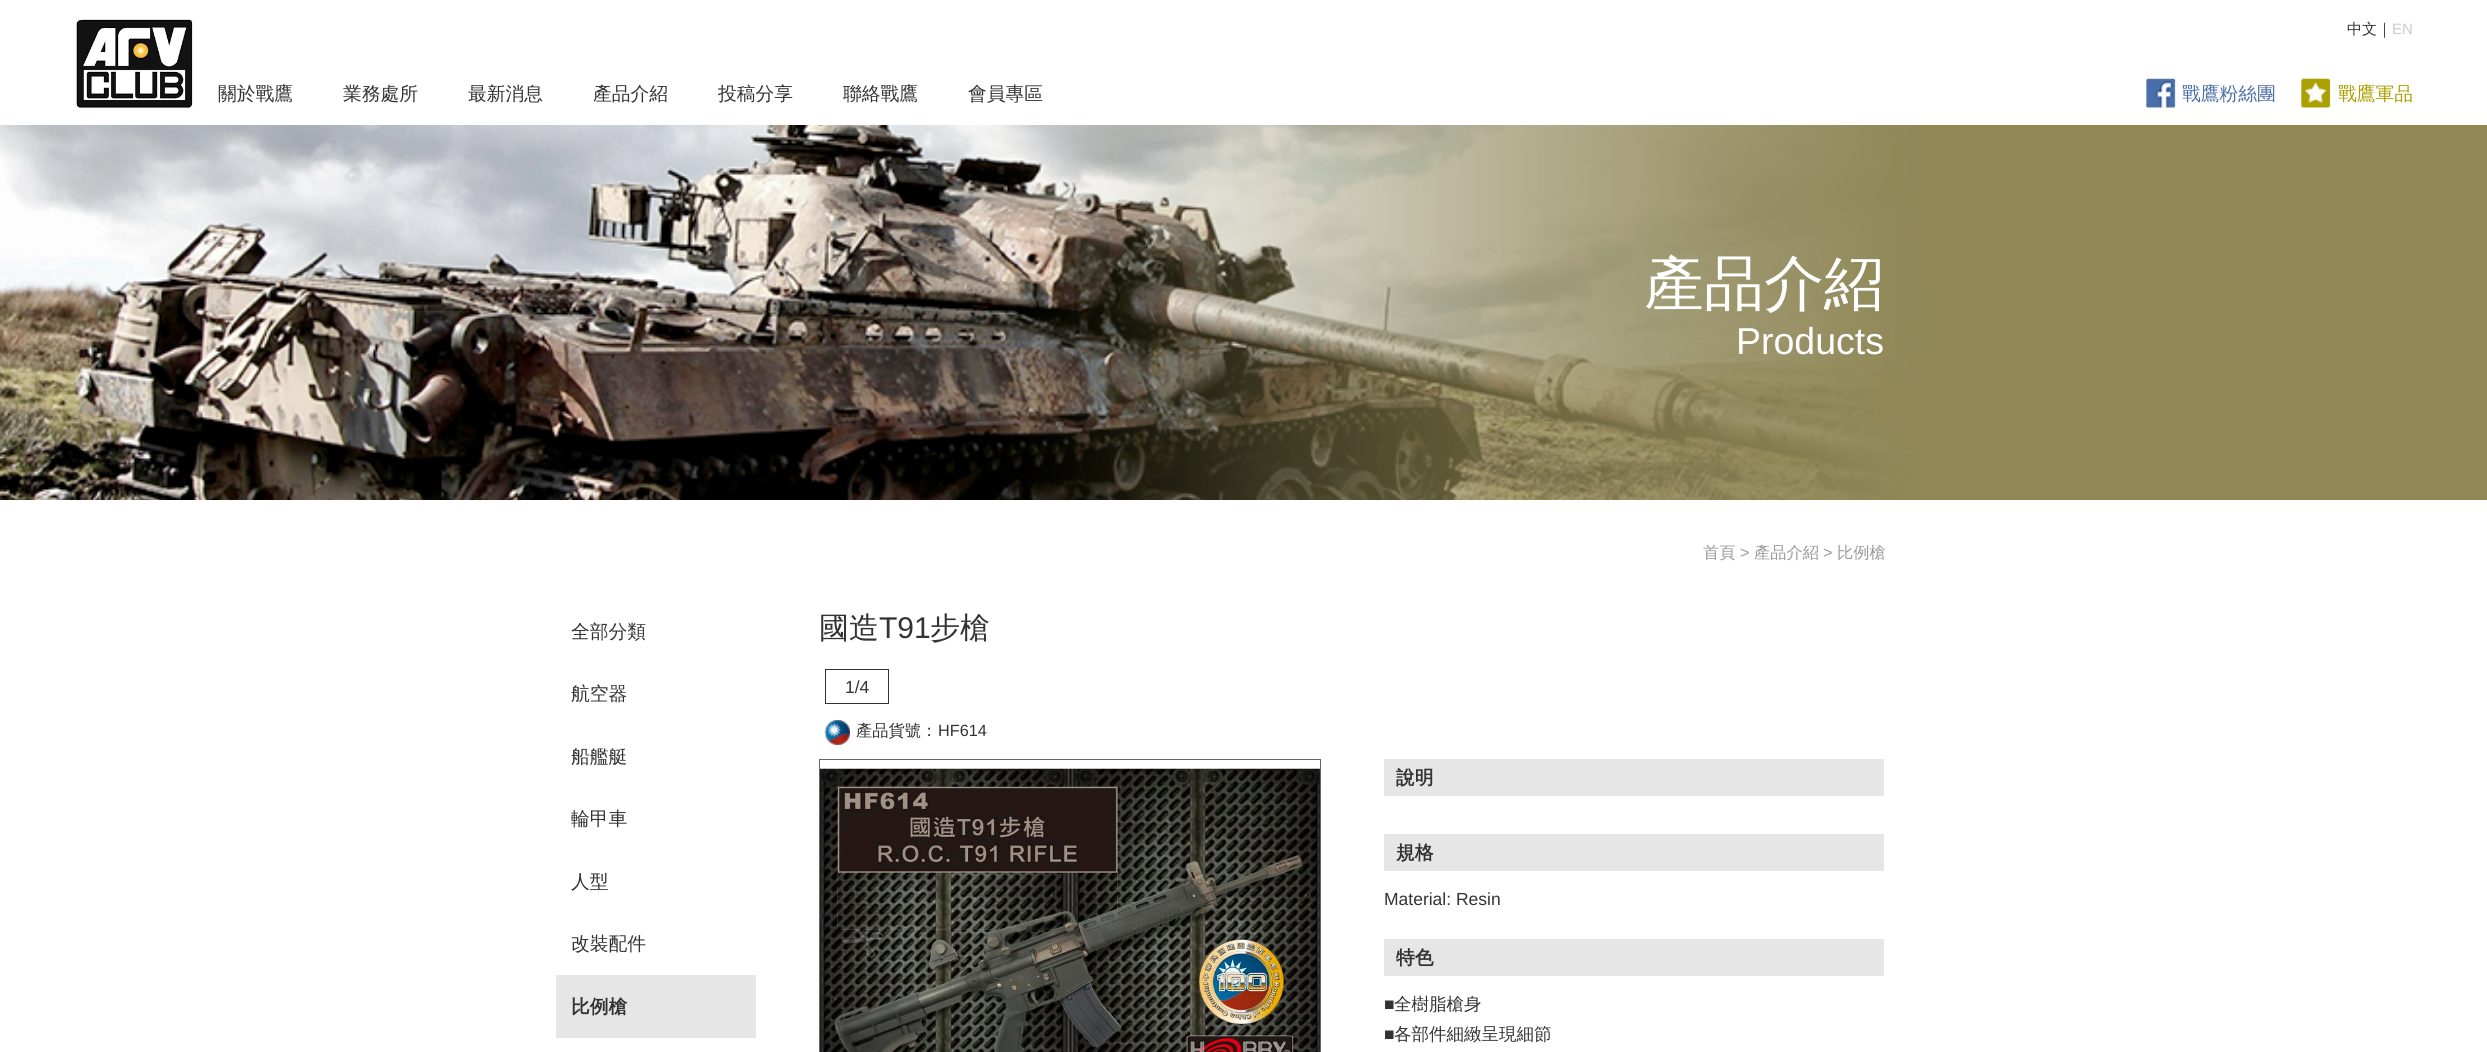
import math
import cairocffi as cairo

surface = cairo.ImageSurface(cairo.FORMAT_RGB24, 2487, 1052)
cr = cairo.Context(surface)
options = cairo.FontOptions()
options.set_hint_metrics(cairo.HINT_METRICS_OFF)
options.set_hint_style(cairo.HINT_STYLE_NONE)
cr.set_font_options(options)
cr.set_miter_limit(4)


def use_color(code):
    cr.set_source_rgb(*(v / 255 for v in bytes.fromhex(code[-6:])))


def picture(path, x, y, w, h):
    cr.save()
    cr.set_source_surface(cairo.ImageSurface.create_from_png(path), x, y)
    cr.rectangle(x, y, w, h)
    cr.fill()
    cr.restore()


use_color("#ffffff")
cr.paint()
picture("img1.png", 76, 19, 117, 89)
cr.select_font_face("WenQuanYi Zen Hei Medium")
cr.set_font_size(15)
use_color("#333333")
cr.move_to(2347, 34)
cr.show_text("中文｜")
cr.select_font_face("Liberation Sans")
use_color("#cccccc")
cr.move_to(2392, 34)
cr.show_text("EN")
cr.select_font_face("WenQuanYi Zen Hei Medium")
cr.set_font_size(18.75)
use_color("#333333")
cr.move_to(218, 100)
cr.show_text("關於戰鷹")
cr.move_to(343, 100)
cr.show_text("業務處所")
cr.move_to(468, 100)
cr.show_text("最新消息")
cr.move_to(593, 100)
cr.show_text("產品介紹")
cr.move_to(718, 100)
cr.show_text("投稿分享")
cr.move_to(843, 100)
cr.show_text("聯絡戰鷹")
cr.move_to(968, 100)
cr.show_text("會員專區")
picture("img2.png", 2146, 78, 30, 30)
use_color("#4a6ea7")
cr.move_to(2182, 100)
cr.show_text("戰鷹粉絲團")
picture("img3.png", 2301, 78, 30, 30)
use_color("#ad9f00")
cr.move_to(2338, 100)
cr.show_text("戰鷹軍品")
picture("img4.png", 0, 125, 2487, 375)
cr.set_font_size(60)
use_color("#ffffff")
cr.move_to(1644, 304)
cr.show_text("產品介紹")
cr.select_font_face("Liberation Sans")
cr.set_font_size(37.5)
cr.move_to(1736, 354)
cr.show_text("Products")
cr.select_font_face("WenQuanYi Zen Hei Medium")
cr.set_font_size(18.75)
use_color("#333333")
cr.move_to(571, 638)
cr.show_text("全部分類")
cr.move_to(571, 700)
cr.show_text("航空器")
cr.move_to(571, 763)
cr.show_text("船艦艇")
cr.move_to(571, 825)
cr.show_text("輪甲車")
cr.move_to(571, 888)
cr.show_text("人型")
cr.move_to(571, 950)
cr.show_text("改裝配件")
use_color("#e6e6e6")
cr.rectangle(556, 975, 200, 63)
cr.fill()
cr.select_font_face("WenQuanYi Zen Hei", cairo.FONT_SLANT_NORMAL, cairo.FONT_WEIGHT_BOLD)
use_color("#333333")
cr.move_to(571, 1013)
cr.show_text("比例槍")
cr.select_font_face("WenQuanYi Zen Hei Medium")
cr.set_font_size(16.25)
use_color("#999999")
cr.move_to(1703, 558)
cr.show_text("首頁")
cr.select_font_face("Liberation Sans")
cr.move_to(1740, 558)
cr.show_text(">")
cr.select_font_face("WenQuanYi Zen Hei Medium")
cr.move_to(1754, 558)
cr.show_text("產品介紹")
cr.select_font_face("Liberation Sans")
cr.move_to(1823, 558)
cr.show_text(">")
cr.select_font_face("WenQuanYi Zen Hei Medium")
cr.move_to(1837, 558)
cr.show_text("比例槍")
cr.set_font_size(30)
use_color("#333333")
cr.move_to(819, 638)
cr.show_text("國造")
cr.select_font_face("Liberation Sans")
cr.move_to(879, 638)
cr.show_text("T91")
cr.select_font_face("WenQuanYi Zen Hei Medium")
cr.move_to(930, 638)
cr.show_text("步槍")
cr.rectangle(825.5, 669.5, 63, 34)
cr.set_line_width(1)
cr.stroke()
cr.select_font_face("Liberation Sans")
cr.set_font_size(17.5)
cr.move_to(845, 693)
cr.show_text("1/4")
picture("img5.png", 825, 720, 25, 25)
cr.select_font_face("WenQuanYi Zen Hei Medium")
cr.set_font_size(16.25)
cr.move_to(856, 736)
cr.show_text("產品貨號：")
cr.select_font_face("Liberation Sans")
cr.move_to(938, 736)
cr.show_text("HF614")
cr.rectangle(819.5, 759.5, 501, 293)
use_color("#666666")
cr.stroke()
picture("img6.png", 820, 768, 500, 284)
use_color("#e6e6e6")
cr.rectangle(1384, 759, 500, 37)
cr.fill()
cr.select_font_face("WenQuanYi Zen Hei", cairo.FONT_SLANT_NORMAL, cairo.FONT_WEIGHT_BOLD)
cr.set_font_size(18.75)
use_color("#333333")
cr.move_to(1396, 784)
cr.show_text("說明")
use_color("#e6e6e6")
cr.rectangle(1384, 834, 500, 37)
cr.fill()
use_color("#333333")
cr.move_to(1396, 859)
cr.show_text("規格")
cr.select_font_face("Liberation Sans")
cr.set_font_size(17.5)
cr.move_to(1384, 905)
cr.show_text("Material: Resin")
use_color("#e6e6e6")
cr.rectangle(1384, 939, 500, 37)
cr.fill()
cr.select_font_face("WenQuanYi Zen Hei", cairo.FONT_SLANT_NORMAL, cairo.FONT_WEIGHT_BOLD)
cr.set_font_size(18.75)
use_color("#333333")
cr.move_to(1396, 964)
cr.show_text("特色")
cr.select_font_face("Liberation Sans")
cr.set_font_size(17.5)
cr.move_to(1384, 1010)
cr.show_text("■")
cr.select_font_face("WenQuanYi Zen Hei Medium")
cr.move_to(1394, 1010)
cr.show_text("全樹脂槍身")
cr.select_font_face("Liberation Sans")
cr.move_to(1384, 1040)
cr.show_text("■")
cr.select_font_face("WenQuanYi Zen Hei Medium")
cr.move_to(1394, 1040)
cr.show_text("各部件細緻呈現細節")
surface.write_to_png("result.png")
